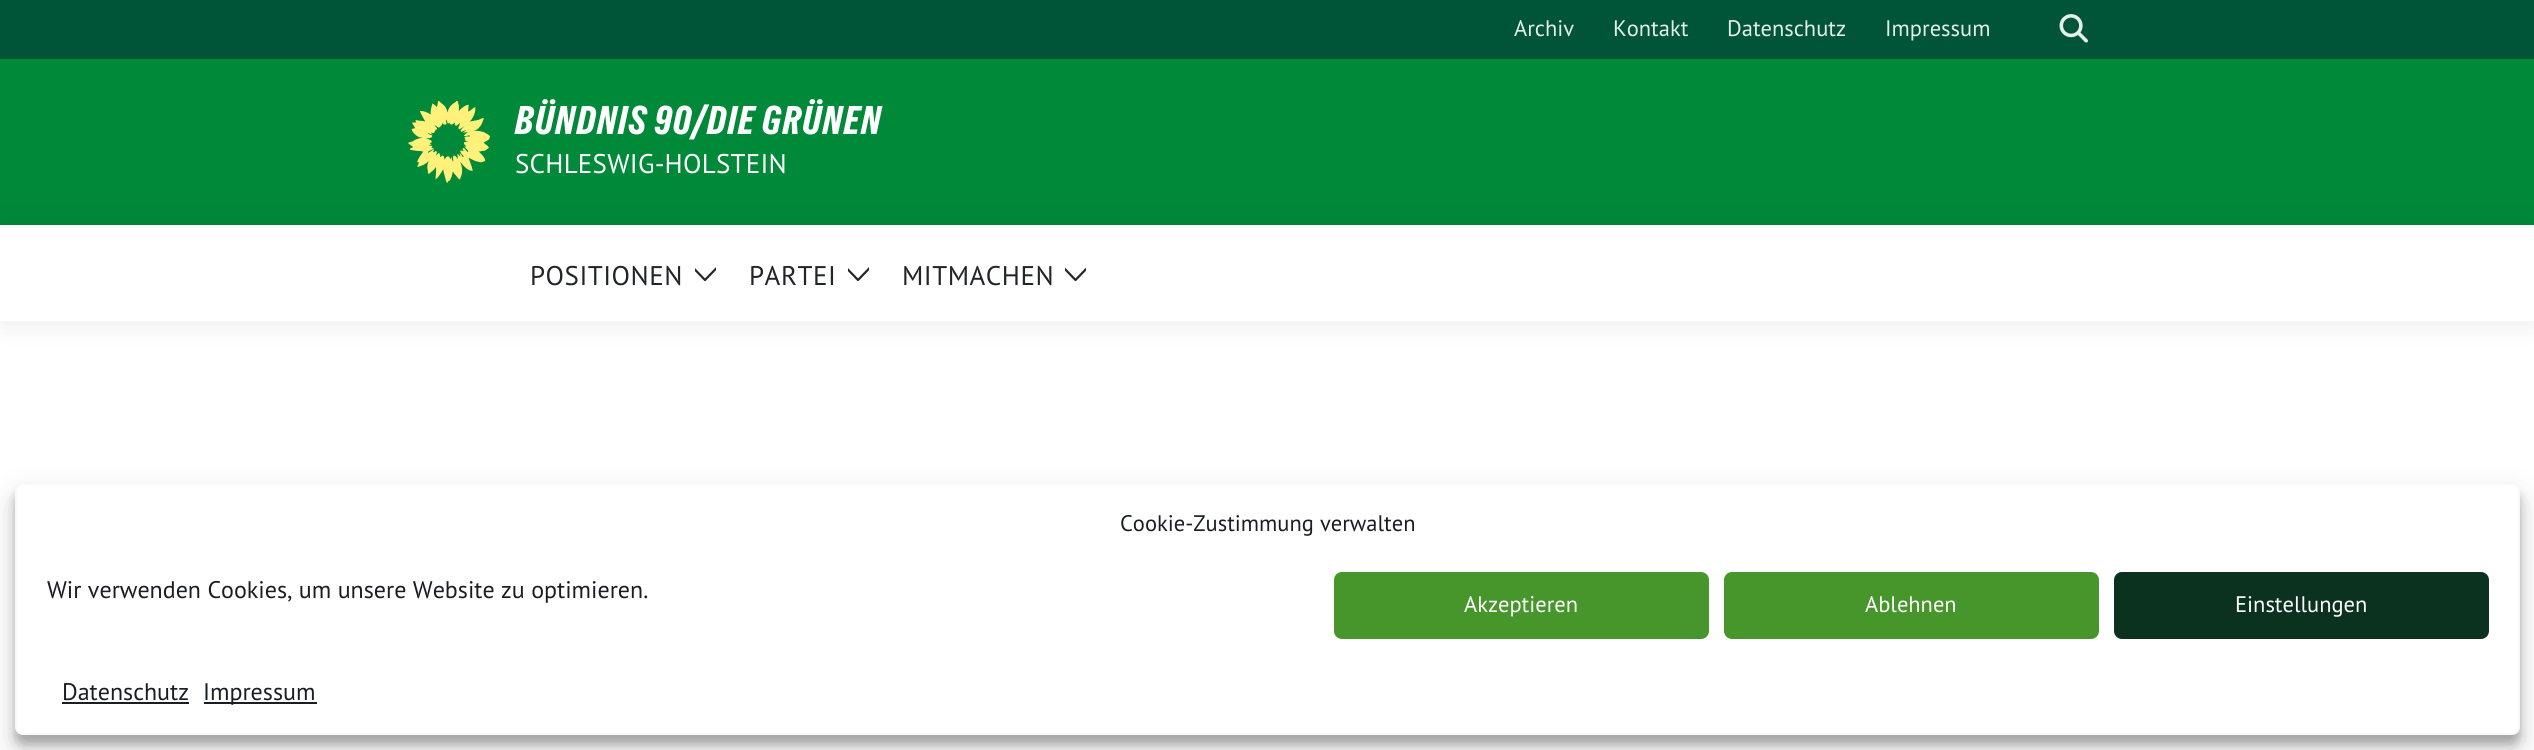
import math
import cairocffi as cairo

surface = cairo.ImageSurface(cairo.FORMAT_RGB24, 2534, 750)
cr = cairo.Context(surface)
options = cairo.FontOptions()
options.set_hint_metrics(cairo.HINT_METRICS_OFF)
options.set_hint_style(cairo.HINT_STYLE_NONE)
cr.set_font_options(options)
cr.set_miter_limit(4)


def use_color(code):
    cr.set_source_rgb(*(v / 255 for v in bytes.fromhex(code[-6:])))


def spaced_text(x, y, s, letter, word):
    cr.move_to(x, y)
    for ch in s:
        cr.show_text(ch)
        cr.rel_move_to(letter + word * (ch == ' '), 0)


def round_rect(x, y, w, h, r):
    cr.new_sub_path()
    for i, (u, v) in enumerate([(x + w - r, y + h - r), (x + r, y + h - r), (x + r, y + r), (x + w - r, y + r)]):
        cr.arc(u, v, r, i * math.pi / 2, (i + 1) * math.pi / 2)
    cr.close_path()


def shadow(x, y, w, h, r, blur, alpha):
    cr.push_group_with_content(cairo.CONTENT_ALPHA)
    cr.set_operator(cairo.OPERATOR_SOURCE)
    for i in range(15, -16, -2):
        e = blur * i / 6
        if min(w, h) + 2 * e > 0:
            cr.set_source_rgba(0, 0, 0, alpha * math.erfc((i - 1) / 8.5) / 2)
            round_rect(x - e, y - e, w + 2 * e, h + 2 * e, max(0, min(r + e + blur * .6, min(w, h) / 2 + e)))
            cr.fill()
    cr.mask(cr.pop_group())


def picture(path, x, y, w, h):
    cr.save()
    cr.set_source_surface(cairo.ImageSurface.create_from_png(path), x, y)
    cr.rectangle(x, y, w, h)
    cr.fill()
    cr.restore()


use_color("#ffffff")
cr.paint()
use_color("#005437")
cr.rectangle(0, 0, 2534, 59)
cr.fill()
cr.select_font_face("PT Sans")
cr.set_font_size(22.5)
use_color("#e6eeeb")
cr.move_to(1514, 36)
cr.show_text("Archiv")
cr.move_to(1613, 36)
cr.show_text("Kontakt")
cr.move_to(1727, 36)
cr.show_text("Datenschutz")
cr.move_to(1885, 36)
cr.show_text("Impressum")
picture("img1.png", 2059, 14, 29, 29)
use_color("#008939")
cr.rectangle(0, 59, 2534, 166)
cr.fill()
picture("img2.png", 408, 101, 83, 82)
cr.select_font_face("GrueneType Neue")
cr.set_font_size(37.5)
use_color("#ffffff")
spaced_text(515, 134, "BÜNDNIS 90/DIE GRÜNEN", 1.5, 0)
cr.select_font_face("PT Sans")
cr.set_font_size(27)
spaced_text(515, 173, "SCHLESWIG-HOLSTEIN", 0.25, 0)
cr.save()
cr.set_fill_rule(cairo.FILL_RULE_EVEN_ODD)
cr.new_path()
cr.move_to(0, 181)
cr.line_to(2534, 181)
cr.line_to(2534, 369)
cr.line_to(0, 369)
cr.close_path()
cr.move_to(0, 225)
cr.line_to(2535, 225)
cr.line_to(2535, 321)
cr.line_to(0, 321)
cr.close_path()
cr.clip()
use_color("#000000")
shadow(0, 227, 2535, 96, 0, 15, 0.08)
cr.restore()
use_color("#212529")
spaced_text(530, 285, "POSITIONEN", 0.5, 0)
cr.save()
cr.rectangle(695, 255, 21, 36)
cr.clip()
cr.new_path()
cr.move_to(691.5, 266)
cr.line_to(705, 280)
cr.line_to(718.5, 266)
cr.set_line_width(2.2)
cr.set_line_cap(cairo.LINE_CAP_ROUND)
cr.set_line_join(cairo.LINE_JOIN_ROUND)
cr.stroke()
cr.restore()
spaced_text(749, 285, "PARTEI", 0.5, 0)
cr.save()
cr.rectangle(848, 255, 21, 36)
cr.clip()
cr.new_path()
cr.move_to(844.5, 266)
cr.line_to(858, 280)
cr.line_to(871.5, 266)
cr.set_line_width(2.2)
cr.set_line_cap(cairo.LINE_CAP_ROUND)
cr.set_line_join(cairo.LINE_JOIN_ROUND)
cr.stroke()
cr.restore()
spaced_text(902, 285, "MITMACHEN", 0.5, 0)
cr.save()
cr.rectangle(1065, 255, 21, 36)
cr.clip()
cr.new_path()
cr.move_to(1062, 266)
cr.line_to(1075.5, 280)
cr.line_to(1089, 266)
cr.set_line_width(2.2)
cr.set_line_cap(cairo.LINE_CAP_ROUND)
cr.set_line_join(cairo.LINE_JOIN_ROUND)
cr.stroke()
cr.restore()
use_color("#000000")
shadow(15, 492, 2505, 252, 8, 4.5, 0.23)
shadow(15, 498, 2505, 252, 8, 15, 0.19)
use_color("#ffffff")
round_rect(16, 484, 2503, 250, 7)
cr.fill_preserve()
use_color("#f9f9f9")
cr.stroke()
cr.set_font_size(22.5)
use_color("#191e23")
cr.move_to(1120, 531)
cr.show_text("Cookie-Zustimmung verwalten")
cr.set_font_size(24)
cr.move_to(47, 598)
cr.show_text("Wir verwenden Cookies, um unsere Website zu optimieren.")
use_color("#46962b")
round_rect(1335, 573, 373, 65, 7)
cr.fill_preserve()
cr.stroke()
cr.set_font_size(22.5)
use_color("#ffffff")
cr.move_to(1464, 612)
cr.show_text("Akzeptieren")
use_color("#46962b")
round_rect(1725, 573, 373, 65, 7)
cr.fill_preserve()
cr.stroke()
use_color("#ffffff")
cr.move_to(1865, 612)
cr.show_text("Ablehnen")
use_color("#0a321e")
round_rect(2115, 573, 373, 65, 7)
cr.fill_preserve()
cr.stroke()
use_color("#ffffff")
cr.move_to(2235, 612)
cr.show_text("Einstellungen")
cr.set_font_size(24)
use_color("#191e23")
cr.move_to(62, 700)
cr.show_text("Datenschutz")
cr.rectangle(62, 702, 127, 2)
cr.fill()
cr.rectangle(204, 702, 113, 2)
cr.fill()
cr.move_to(203, 700)
cr.show_text("Impressum")
surface.write_to_png("result.png")
